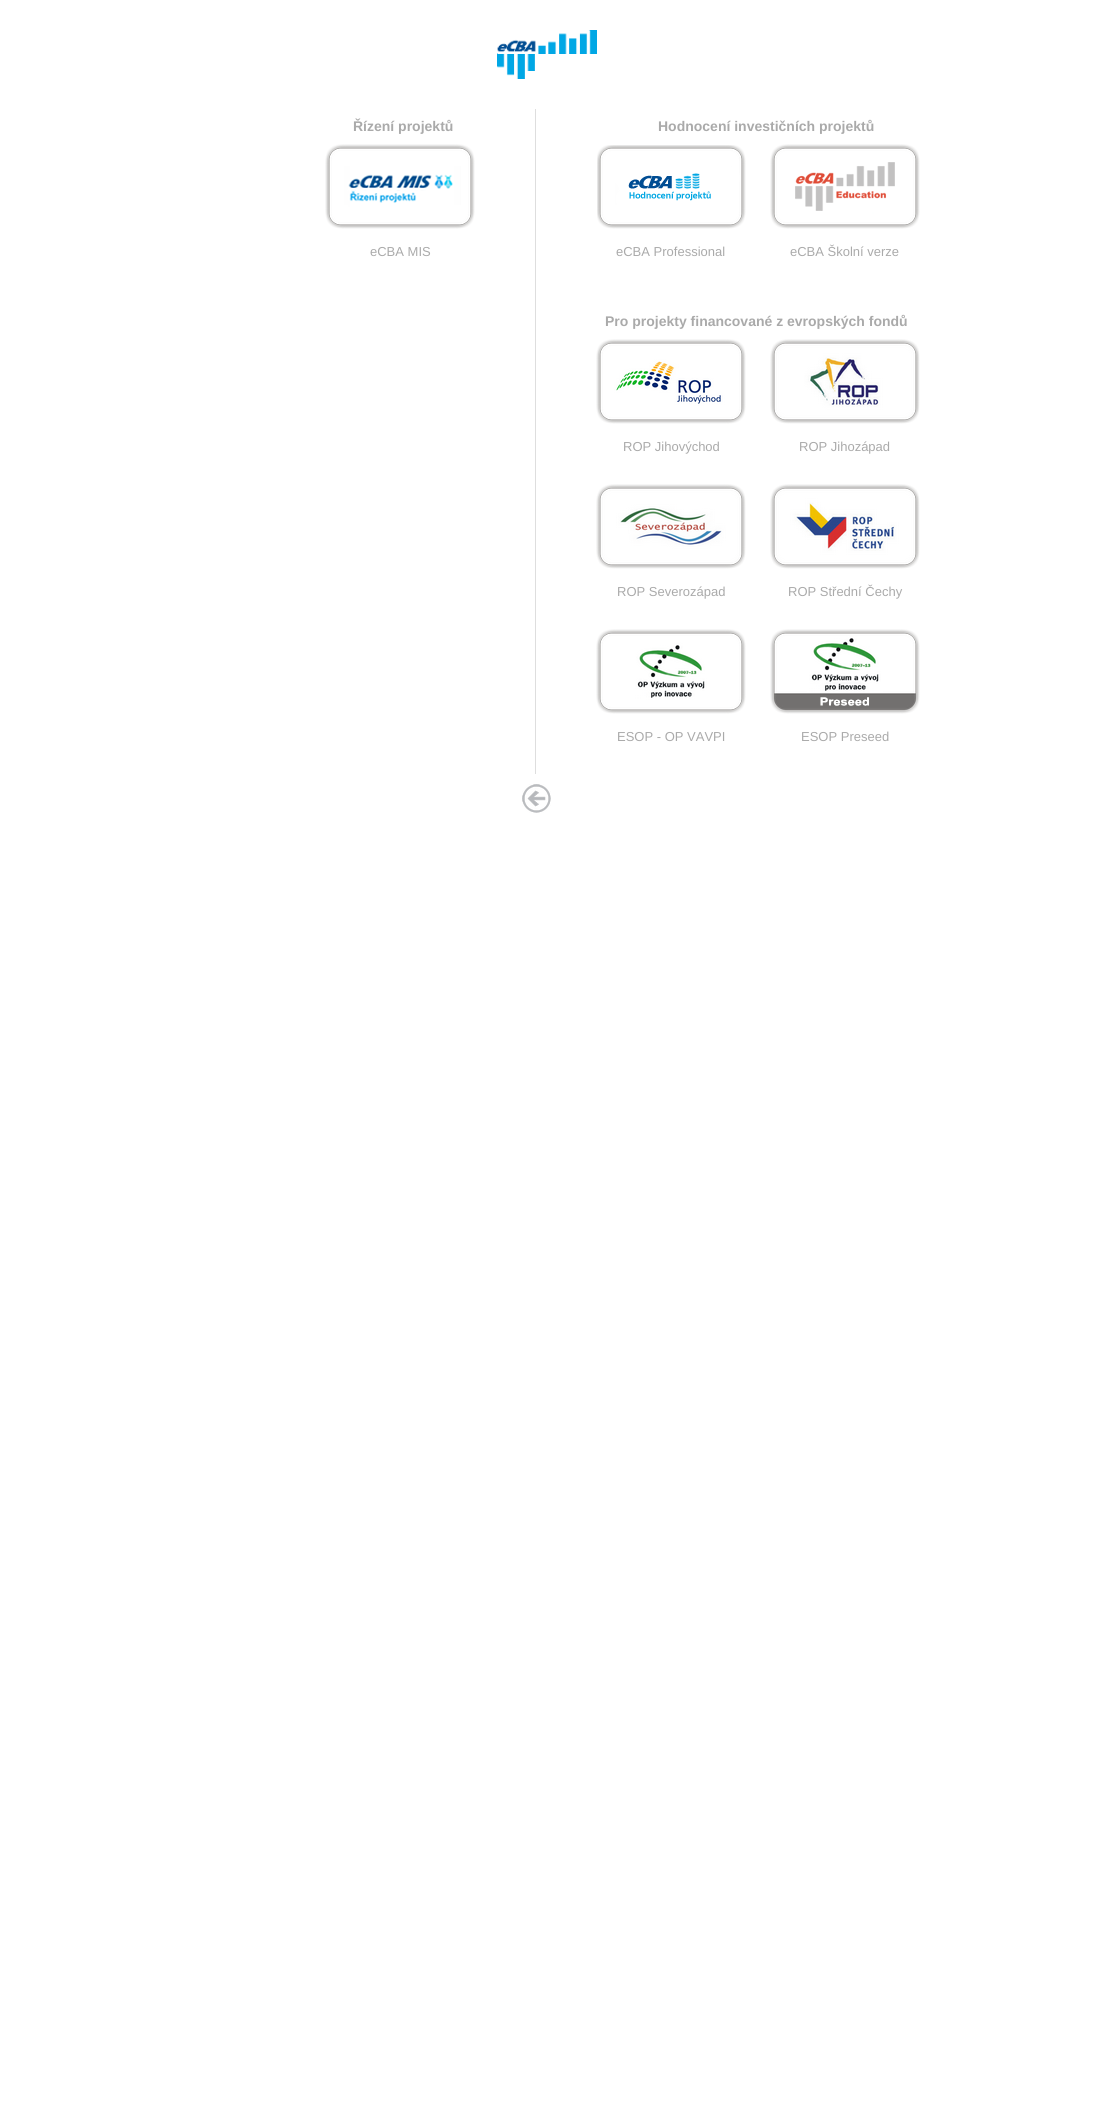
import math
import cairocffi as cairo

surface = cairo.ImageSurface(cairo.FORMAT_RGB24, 1094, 2105)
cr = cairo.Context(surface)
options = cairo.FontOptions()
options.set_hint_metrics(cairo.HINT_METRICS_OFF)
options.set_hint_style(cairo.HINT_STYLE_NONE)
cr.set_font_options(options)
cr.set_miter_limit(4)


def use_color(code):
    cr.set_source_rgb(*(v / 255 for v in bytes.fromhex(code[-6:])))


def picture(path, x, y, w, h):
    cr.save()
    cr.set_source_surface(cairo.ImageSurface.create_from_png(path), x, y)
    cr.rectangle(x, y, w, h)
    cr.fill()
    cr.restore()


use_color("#ffffff")
cr.paint()
picture("img1.png", 497, 30, 100, 49)
cr.select_font_face("Liberation Sans", cairo.FONT_SLANT_NORMAL, cairo.FONT_WEIGHT_BOLD)
cr.set_font_size(14)
use_color("#aaaaaa")
cr.move_to(353, 131)
cr.show_text("Řízení projektů")
picture("img2.png", 325, 144, 150, 85)
cr.select_font_face("Liberation Sans")
cr.set_font_size(13)
cr.move_to(370, 256)
cr.show_text("eCBA MIS")
use_color("#dedede")
cr.rectangle(535, 109, 1, 665)
cr.fill()
cr.select_font_face("Liberation Sans", cairo.FONT_SLANT_NORMAL, cairo.FONT_WEIGHT_BOLD)
cr.set_font_size(14)
use_color("#aaaaaa")
cr.move_to(658, 131)
cr.show_text("Hodnocení investičních projektů")
picture("img3.png", 597, 145, 149, 84)
cr.select_font_face("Liberation Sans")
cr.set_font_size(13)
cr.move_to(616, 256)
cr.show_text("eCBA Professional")
picture("img4.png", 770, 144, 150, 85)
cr.move_to(790, 256)
cr.show_text("eCBA Školní verze")
cr.select_font_face("Liberation Sans", cairo.FONT_SLANT_NORMAL, cairo.FONT_WEIGHT_BOLD)
cr.set_font_size(14)
cr.move_to(605, 326)
cr.show_text("Pro projekty financované z evropských fondů")
picture("img5.png", 596, 339, 150, 85)
cr.select_font_face("Liberation Sans")
cr.set_font_size(13)
cr.move_to(623, 451)
cr.show_text("ROP Jihovýchod")
picture("img6.png", 770, 339, 150, 85)
cr.move_to(799, 451)
cr.show_text("ROP Jihozápad")
picture("img7.png", 596, 484, 150, 85)
cr.move_to(617, 596)
cr.show_text("ROP Severozápad")
picture("img8.png", 770, 484, 150, 85)
cr.move_to(788, 596)
cr.show_text("ROP Střední Čechy")
picture("img9.png", 596, 629, 150, 85)
cr.move_to(617, 741)
cr.show_text("ESOP - OP VAVPI")
picture("img10.png", 770, 629, 150, 85)
cr.move_to(801, 741)
cr.show_text("ESOP Preseed")
picture("img11.png", 522, 784, 29, 29)
surface.write_to_png("result.png")
